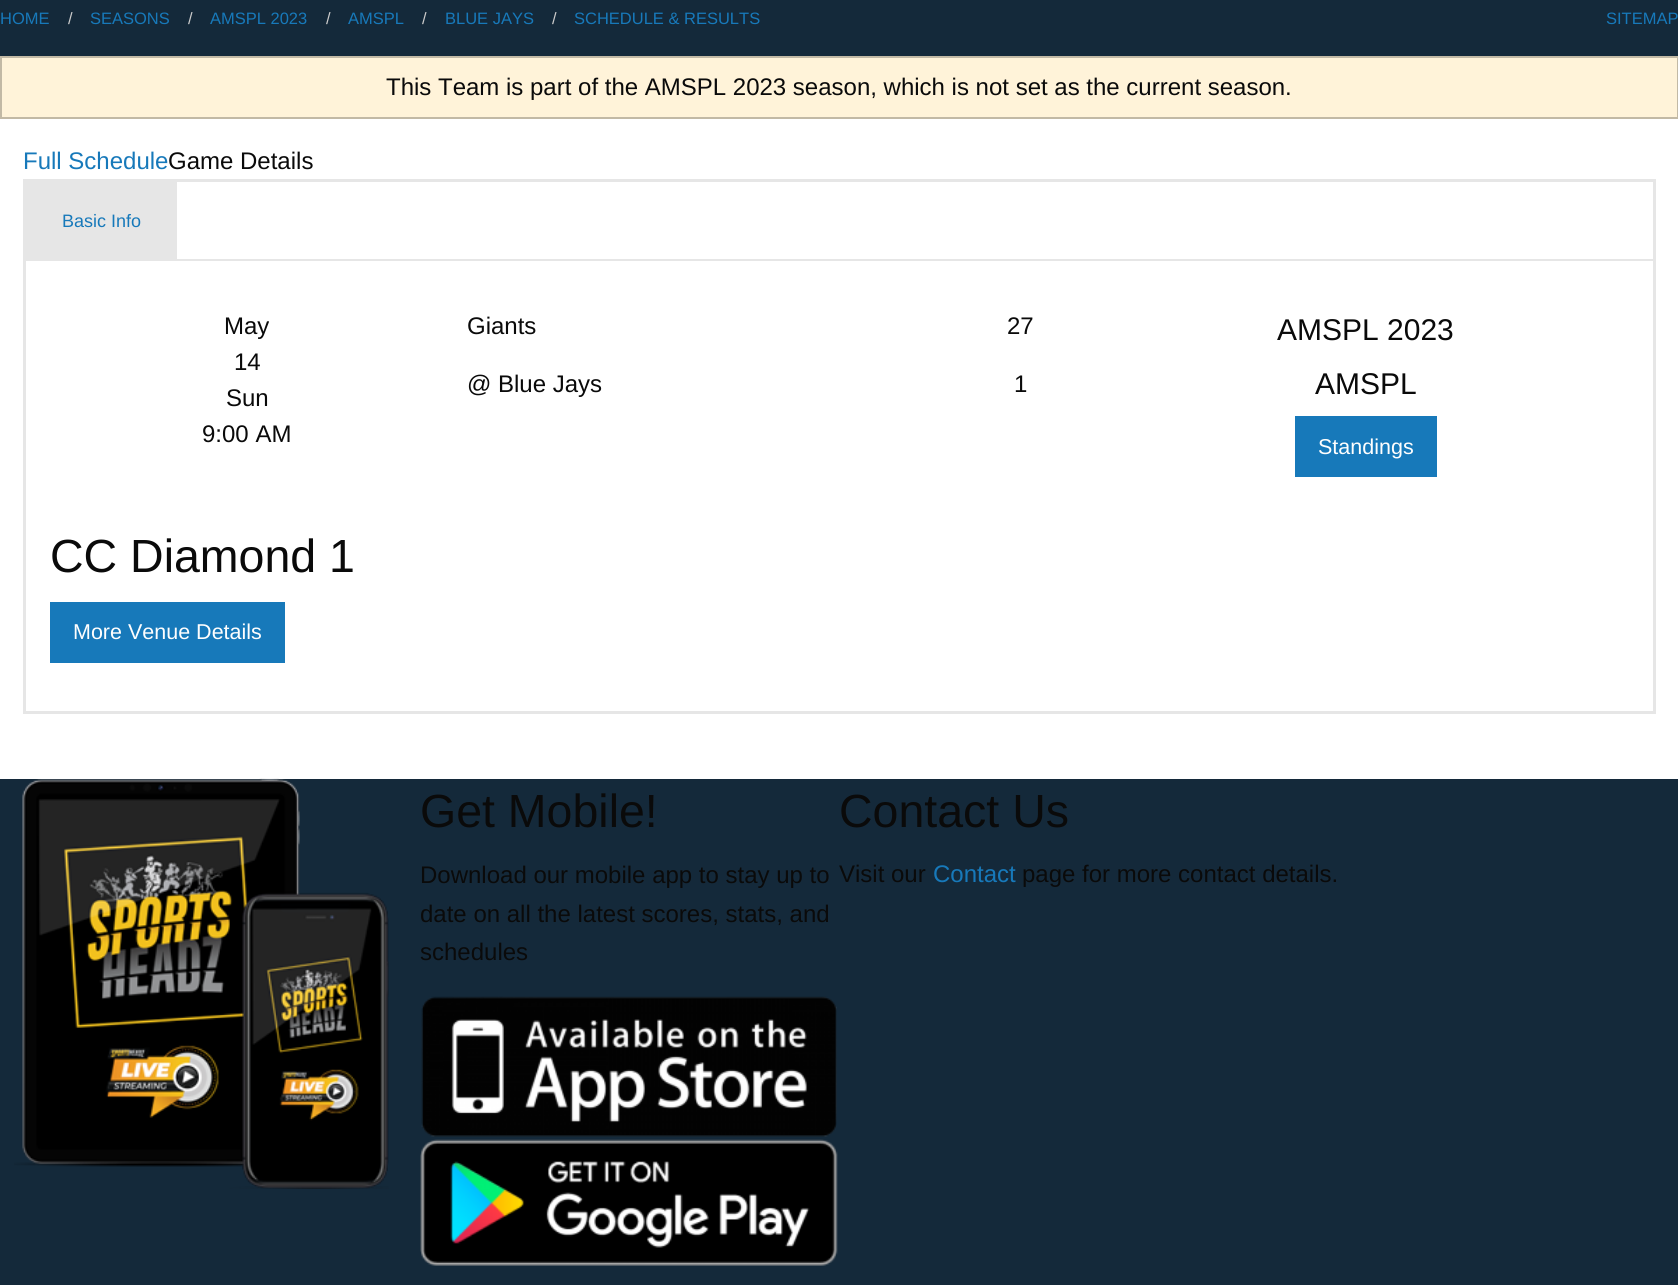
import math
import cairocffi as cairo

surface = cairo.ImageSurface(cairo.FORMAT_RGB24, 1678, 1285)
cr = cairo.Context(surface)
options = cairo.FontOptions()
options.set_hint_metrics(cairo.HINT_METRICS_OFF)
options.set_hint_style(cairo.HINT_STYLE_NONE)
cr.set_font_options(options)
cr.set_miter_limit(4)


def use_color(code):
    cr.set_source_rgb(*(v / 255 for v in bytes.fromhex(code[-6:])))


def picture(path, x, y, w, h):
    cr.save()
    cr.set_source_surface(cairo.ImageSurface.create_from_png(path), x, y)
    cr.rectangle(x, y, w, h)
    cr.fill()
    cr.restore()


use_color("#14293a")
cr.paint()
cr.select_font_face("Liberation Sans")
cr.set_font_size(16.5)
use_color("#1779ba")
cr.move_to(0, 24)
cr.show_text("HOME")
use_color("#cacaca")
cr.move_to(68, 24)
cr.show_text("/")
use_color("#1779ba")
cr.move_to(90, 24)
cr.show_text("SEASONS")
use_color("#cacaca")
cr.move_to(188, 24)
cr.show_text("/")
use_color("#1779ba")
cr.move_to(210, 24)
cr.show_text("AMSPL 2023")
use_color("#cacaca")
cr.move_to(326, 24)
cr.show_text("/")
use_color("#1779ba")
cr.move_to(348, 24)
cr.show_text("AMSPL")
use_color("#cacaca")
cr.move_to(422, 24)
cr.show_text("/")
use_color("#1779ba")
cr.move_to(445, 24)
cr.show_text("BLUE JAYS")
use_color("#cacaca")
cr.move_to(552, 24)
cr.show_text("/")
use_color("#1779ba")
cr.move_to(574, 24)
cr.show_text("SCHEDULE & RESULTS")
cr.move_to(1606, 24)
cr.show_text("SITEMAP")
use_color("#ffffff")
cr.rectangle(0, 119, 1678, 660)
cr.fill()
use_color("#fff3d9")
cr.rectangle(1, 57, 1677, 61)
cr.fill_preserve()
use_color("#c2b9a5")
cr.stroke()
cr.set_font_size(24)
use_color("#0a0a0a")
cr.move_to(386, 95)
cr.show_text("This Team is part of the AMSPL 2023 season, which is not set as the current season.")
use_color("#1779ba")
cr.move_to(23, 169)
cr.show_text("Full Schedule")
use_color("#0a0a0a")
cr.move_to(168, 169)
cr.show_text("Game Details")
cr.rectangle(24, 180, 1631, 533)
use_color("#e6e6e6")
cr.stroke()
cr.rectangle(25, 181, 1629, 79)
cr.stroke()
cr.rectangle(26, 182, 151, 77)
cr.fill()
cr.set_font_size(18)
use_color("#1779ba")
cr.move_to(62, 227)
cr.show_text("Basic Info")
use_color("#e6e6e6")
cr.rectangle(1653, 261, 1, 452)
cr.fill()
cr.rectangle(24, 711, 1631, 1)
cr.fill()
cr.rectangle(25, 261, 1, 452)
cr.fill()
cr.set_font_size(24)
use_color("#0a0a0a")
cr.move_to(224, 334)
cr.show_text("May")
cr.move_to(234, 370)
cr.show_text("14")
cr.move_to(226, 406)
cr.show_text("Sun")
cr.move_to(202, 442)
cr.show_text("9:00 AM")
cr.move_to(467, 334)
cr.show_text("Giants")
cr.move_to(1007, 334)
cr.show_text("27")
cr.move_to(467, 392)
cr.show_text("@ Blue Jays")
cr.move_to(1014, 392)
cr.show_text("1")
cr.set_font_size(30)
cr.move_to(1277, 340)
cr.show_text("AMSPL 2023")
cr.move_to(1315, 394)
cr.show_text("AMSPL")
use_color("#1779ba")
cr.rectangle(1295, 416, 142, 61)
cr.fill()
cr.set_font_size(21.5)
use_color("#fefefe")
cr.move_to(1318, 454)
cr.show_text("Standings")
cr.set_font_size(46.5)
use_color("#0a0a0a")
cr.move_to(50, 572)
cr.show_text("CC Diamond 1")
use_color("#1779ba")
cr.rectangle(50, 602, 235, 61)
cr.fill()
cr.set_font_size(21.5)
use_color("#fefefe")
cr.move_to(73, 639)
cr.show_text("More Venue Details")
picture("img1.png", 14, 778, 375, 411)
cr.set_font_size(46.5)
use_color("#0a0a0a")
cr.move_to(420, 827)
cr.show_text("Get Mobile!")
cr.set_font_size(24)
cr.move_to(420, 883)
cr.show_text("Download our mobile app to stay up to")
cr.move_to(420, 922)
cr.show_text("date on all the latest scores, stats, and")
cr.move_to(420, 960)
cr.show_text("schedules")
picture("img2.png", 421, 996, 416, 141)
picture("img3.png", 420, 1139, 418, 127)
cr.set_font_size(46.5)
cr.move_to(839, 827)
cr.show_text("Contact Us")
cr.set_font_size(24)
cr.move_to(839, 882)
cr.show_text("Visit our")
use_color("#1779ba")
cr.move_to(933, 882)
cr.show_text("Contact")
use_color("#0a0a0a")
cr.move_to(1022, 882)
cr.show_text("page for more contact details.")
surface.write_to_png("result.png")
